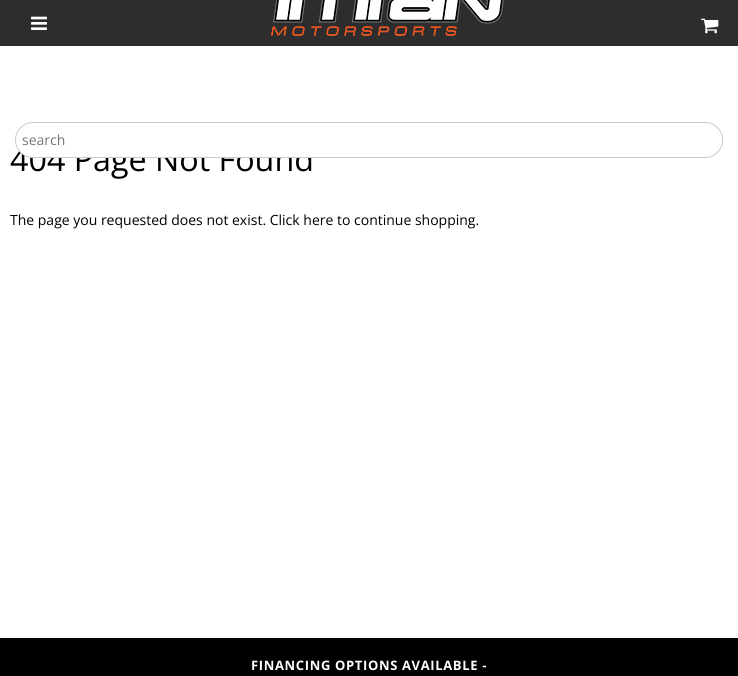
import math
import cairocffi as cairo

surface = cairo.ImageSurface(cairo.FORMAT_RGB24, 738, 676)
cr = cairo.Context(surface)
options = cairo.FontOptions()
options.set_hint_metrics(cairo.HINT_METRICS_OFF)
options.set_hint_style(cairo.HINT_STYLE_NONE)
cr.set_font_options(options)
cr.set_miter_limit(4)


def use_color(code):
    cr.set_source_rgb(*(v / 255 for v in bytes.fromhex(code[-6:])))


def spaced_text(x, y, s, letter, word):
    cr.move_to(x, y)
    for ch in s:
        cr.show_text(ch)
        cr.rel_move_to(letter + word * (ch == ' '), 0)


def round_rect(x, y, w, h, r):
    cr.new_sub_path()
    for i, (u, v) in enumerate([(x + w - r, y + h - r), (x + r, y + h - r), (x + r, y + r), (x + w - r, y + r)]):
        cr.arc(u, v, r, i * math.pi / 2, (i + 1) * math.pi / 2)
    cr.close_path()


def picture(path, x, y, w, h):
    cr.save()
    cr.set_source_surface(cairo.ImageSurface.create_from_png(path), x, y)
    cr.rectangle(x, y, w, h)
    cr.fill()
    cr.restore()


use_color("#ffffff")
cr.paint()
use_color("#2d2d2d")
cr.rectangle(0, 0, 738, 46)
cr.fill()
picture("img1.png", 31, 16, 16, 14)
picture("img2.png", 271, 0, 233, 36)
picture("img3.png", 701, 18, 18, 16)
cr.select_font_face("Open Sans")
cr.set_font_size(32.25)
use_color("#000000")
cr.move_to(10, 171)
cr.show_text("404 Page Not Found")
use_color("#ffffff")
round_rect(15.5, 122.5, 707, 35, 17.5)
cr.fill_preserve()
use_color("#cbcbcb")
cr.set_line_width(1)
cr.stroke()
cr.set_font_size(14)
use_color("#757575")
cr.move_to(22, 145)
cr.show_text("search")
use_color("#000000")
cr.move_to(10, 225)
cr.show_text("The page you requested does not exist. Click here to continue shopping.")
cr.rectangle(0, 638, 738, 38)
cr.fill()
cr.select_font_face("Open Sans", cairo.FONT_SLANT_NORMAL, cairo.FONT_WEIGHT_BOLD)
cr.set_font_size(13)
use_color("#ffffff")
spaced_text(251, 670, "FINANCING OPTIONS AVAILABLE -", 0.65, 0)
surface.write_to_png("result.png")
